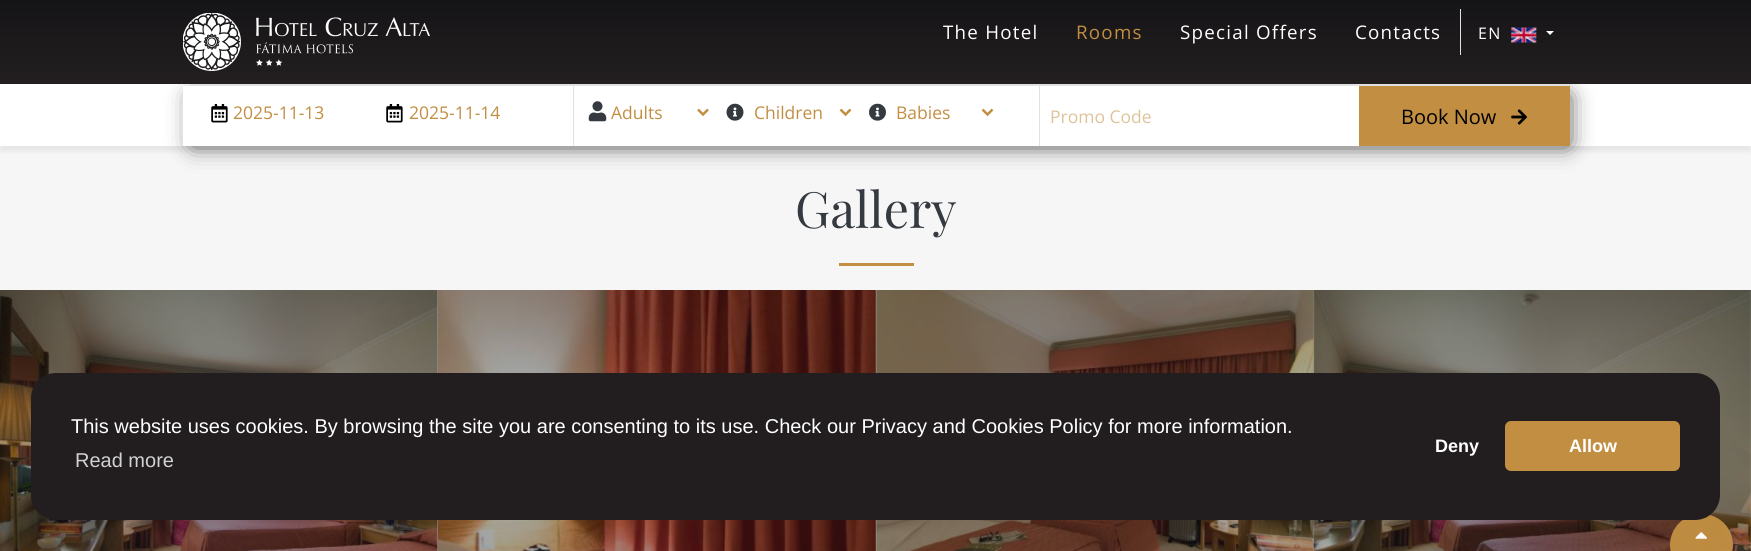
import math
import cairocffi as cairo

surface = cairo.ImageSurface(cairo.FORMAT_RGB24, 1751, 551)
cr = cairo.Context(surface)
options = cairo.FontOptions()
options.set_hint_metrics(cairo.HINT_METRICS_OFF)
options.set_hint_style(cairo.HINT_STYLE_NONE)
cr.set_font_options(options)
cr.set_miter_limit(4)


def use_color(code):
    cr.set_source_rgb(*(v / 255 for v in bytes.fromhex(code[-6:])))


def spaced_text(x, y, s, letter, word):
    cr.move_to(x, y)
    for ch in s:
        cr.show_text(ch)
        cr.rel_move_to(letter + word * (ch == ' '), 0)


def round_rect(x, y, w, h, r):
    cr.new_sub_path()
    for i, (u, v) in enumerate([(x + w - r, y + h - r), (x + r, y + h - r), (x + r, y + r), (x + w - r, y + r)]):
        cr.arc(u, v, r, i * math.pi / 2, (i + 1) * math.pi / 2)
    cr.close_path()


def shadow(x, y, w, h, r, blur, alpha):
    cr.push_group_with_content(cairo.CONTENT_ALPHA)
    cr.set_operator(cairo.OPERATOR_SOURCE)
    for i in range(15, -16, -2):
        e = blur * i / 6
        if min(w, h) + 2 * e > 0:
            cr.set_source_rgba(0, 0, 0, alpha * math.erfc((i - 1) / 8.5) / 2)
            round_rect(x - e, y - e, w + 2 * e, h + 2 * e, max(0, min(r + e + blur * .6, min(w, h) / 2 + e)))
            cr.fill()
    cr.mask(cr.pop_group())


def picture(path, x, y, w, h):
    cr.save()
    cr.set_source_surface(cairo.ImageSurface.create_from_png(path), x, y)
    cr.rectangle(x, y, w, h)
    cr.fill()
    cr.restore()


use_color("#f6f6f6")
cr.paint()
use_color("#000000")
shadow(0, 21, 1751, 130, 0, 2.5, 0.07)
use_color("#ffffff")
cr.rectangle(0, 84, 1751, 62)
cr.fill()
use_color("#000000")
shadow(193, 96, 1375, 48, 0, 12, 0.75)
gradient = cairo.LinearGradient(876, 84, 876, 0)
gradient.add_color_stop_rgba(0, 0.137, 0.122, 0.125, 1)
gradient.add_color_stop_rgba(1, 0.082, 0.078, 0.086, 1)
cr.set_source(gradient)
cr.rectangle(0, 0, 1751, 84)
cr.fill()
picture("img1.png", 183, 13, 247, 58)
cr.select_font_face("Open Sans")
cr.set_font_size(18.75)
use_color("#ffffff")
spaced_text(943, 39, "The Hotel", 1.25, 0)
use_color("#c18e42")
spaced_text(1076, 39, "Rooms", 1.25, 0)
use_color("#ffffff")
spaced_text(1180, 39, "Special Offers", 1.25, 0)
spaced_text(1355, 39, "Contacts", 1.25, 0)
use_color("#dee2e6")
cr.rectangle(1460, 9, 1, 46)
cr.fill()
cr.set_font_size(16)
use_color("#ffffff")
spaced_text(1478, 39, "EN", 1.25, 0)
picture("img2.png", 1511, 27, 26, 16)
cr.new_path()
cr.move_to(1546, 31)
cr.line_to(1554, 31)
cr.line_to(1550, 35)
cr.close_path()
cr.fill()
cr.rectangle(183, 86, 1176, 60)
cr.fill()
use_color("#dee2e6")
cr.rectangle(573, 86, 1, 60)
cr.fill()
picture("img3.png", 211, 104, 17, 19)
cr.set_font_size(17.5)
use_color("#c18e42")
cr.move_to(233, 119)
cr.show_text("2025-11-13")
picture("img3.png", 386, 104, 17, 19)
cr.move_to(409, 119)
cr.show_text("2025-11-14")
use_color("#dee2e6")
cr.rectangle(1039, 86, 1, 60)
cr.fill()
picture("img4.png", 588, 101, 19, 21)
cr.new_path()
cr.move_to(698, 109.5)
cr.line_to(703, 114.5)
cr.line_to(708, 109.5)
use_color("#c18e42")
cr.set_line_width(2.5)
cr.stroke()
cr.move_to(611, 119)
cr.show_text("Adults")
picture("img5.png", 726, 103, 18, 18)
cr.new_path()
cr.move_to(840.5, 109.5)
cr.line_to(845.5, 114.5)
cr.line_to(850.5, 109.5)
cr.stroke()
cr.move_to(754, 119)
cr.show_text("Children")
picture("img6.png", 869, 103, 17, 18)
cr.new_path()
cr.move_to(982.5, 109.5)
cr.line_to(987.5, 114.5)
cr.line_to(992.5, 109.5)
cr.stroke()
cr.move_to(896, 119)
cr.show_text("Babies")
use_color("#dec39a")
cr.move_to(1050, 123)
cr.show_text("Promo Code")
use_color("#c18e42")
cr.rectangle(1359, 86, 211, 60)
cr.fill()
cr.set_font_size(20)
use_color("#000000")
cr.move_to(1401, 124)
cr.show_text("Book Now")
picture("img7.png", 1511, 109, 16, 16)
use_color("#a0a0a0")
cr.rectangle(876, 290, 438, 261)
cr.fill()
cr.rectangle(437, 290, 1, 261)
cr.fill()
cr.select_font_face("Playfair Display")
cr.set_font_size(50)
use_color("#343a40")
cr.move_to(795, 228)
cr.show_text("Gallery")
use_color("#c18e42")
cr.rectangle(839, 263, 75, 3)
cr.fill()
picture("img8.png", 0, 290, 438, 261)
picture("img9.png", 438, 290, 438, 261)
picture("img10.png", 876, 290, 438, 261)
picture("img11.png", 1313, 290, 438, 261)
cr.set_source_rgba(0.757, 0.557, 0.259, 0.97)
round_rect(1670, 514, 63, 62, 31)
cr.fill()
use_color("#221e1f")
round_rect(31, 373, 1689, 147, 25)
cr.fill()
cr.select_font_face("Liberation Sans")
cr.set_font_size(20)
use_color("#ffffff")
cr.move_to(71, 433)
cr.show_text("This website uses cookies. By browsing the site you are consenting to its use. Check our Privacy and Cookies Policy for more information.")
use_color("#d3d2d2")
cr.move_to(75, 467)
cr.show_text("Read more")
cr.select_font_face("Liberation Sans", cairo.FONT_SLANT_NORMAL, cairo.FONT_WEIGHT_BOLD)
cr.set_font_size(18)
use_color("#ffffff")
cr.move_to(1435, 452)
cr.show_text("Deny")
use_color("#c18e42")
round_rect(1505, 421, 175, 50, 6)
cr.fill()
use_color("#ffffff")
cr.move_to(1569, 452)
cr.show_text("Allow")
picture("img12.png", 1695, 532, 12, 7)
surface.write_to_png("result.png")
